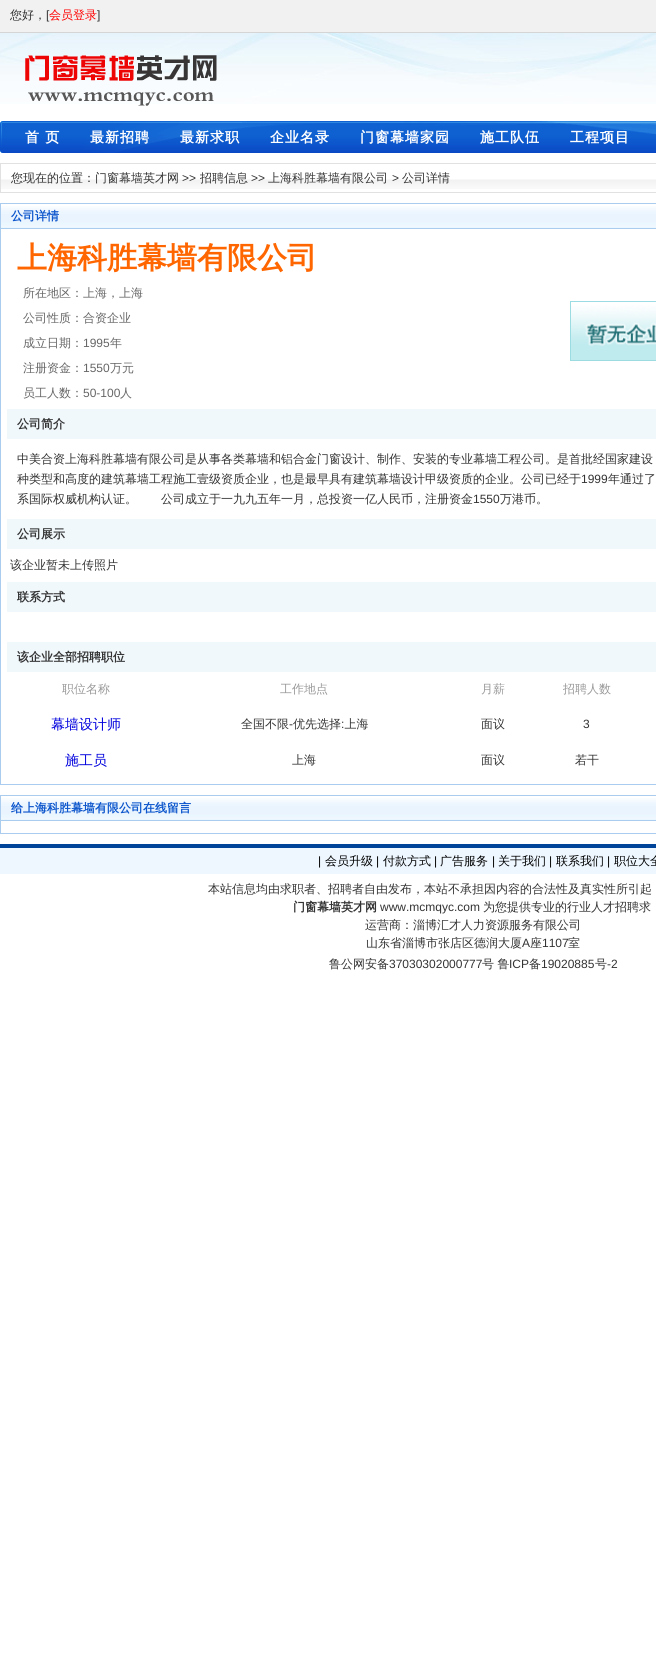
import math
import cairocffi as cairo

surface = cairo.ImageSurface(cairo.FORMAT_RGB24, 656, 1675)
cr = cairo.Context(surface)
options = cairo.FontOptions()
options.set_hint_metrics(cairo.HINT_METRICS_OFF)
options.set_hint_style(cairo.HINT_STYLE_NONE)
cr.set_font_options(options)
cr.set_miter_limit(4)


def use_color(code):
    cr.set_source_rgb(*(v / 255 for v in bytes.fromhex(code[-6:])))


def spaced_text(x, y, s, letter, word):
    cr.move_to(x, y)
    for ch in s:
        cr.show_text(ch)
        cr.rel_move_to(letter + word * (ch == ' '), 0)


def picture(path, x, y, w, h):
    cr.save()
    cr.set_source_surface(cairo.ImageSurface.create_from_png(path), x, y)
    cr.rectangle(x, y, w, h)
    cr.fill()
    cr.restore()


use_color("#ffffff")
cr.paint()
picture("img1.png", 0, 33, 656, 71)
use_color("#f1f1f1")
cr.rectangle(0, 0, 656, 32)
cr.fill()
use_color("#d5d5d5")
cr.rectangle(0, 32, 656, 1)
cr.fill()
cr.select_font_face("WenQuanYi Zen Hei Medium")
cr.set_font_size(12)
use_color("#333333")
cr.move_to(10, 19)
cr.show_text("您好，")
cr.select_font_face("Liberation Sans")
cr.move_to(46, 19)
cr.show_text("[")
cr.select_font_face("WenQuanYi Zen Hei Medium")
use_color("#ff0000")
cr.move_to(49, 19)
cr.show_text("会员登录")
cr.select_font_face("Liberation Sans")
use_color("#333333")
cr.move_to(97, 19)
cr.show_text("]")
picture("img2.png", 25, 55, 192, 51)
picture("img3.png", 0, 121, 656, 32)
cr.select_font_face("WenQuanYi Zen Hei", cairo.FONT_SLANT_NORMAL, cairo.FONT_WEIGHT_BOLD)
cr.set_font_size(14)
use_color("#ffffff")
spaced_text(25, 142, "首 页", 1, 0)
spaced_text(90, 142, "最新招聘", 1, 0)
spaced_text(180, 142, "最新求职", 1, 0)
spaced_text(270, 142, "企业名录", 1, 0)
spaced_text(360, 142, "门窗幕墙家园", 1, 0)
spaced_text(480, 142, "施工队伍", 1, 0)
spaced_text(570, 142, "工程项目", 1, 0)
picture("img4.png", 1, 179, 655, 10)
cr.rectangle(0.5, 163.5, 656, 29)
use_color("#e1e1e1")
cr.set_line_width(1)
cr.stroke()
cr.select_font_face("WenQuanYi Zen Hei Medium")
cr.set_font_size(12)
use_color("#333333")
cr.move_to(11, 182)
cr.show_text("您现在的位置：门窗幕墙英才网")
cr.select_font_face("Liberation Sans")
cr.move_to(182, 182)
cr.show_text(">>")
cr.select_font_face("WenQuanYi Zen Hei Medium")
cr.move_to(200, 182)
cr.show_text("招聘信息")
cr.select_font_face("Liberation Sans")
cr.move_to(251, 182)
cr.show_text(">>")
cr.select_font_face("WenQuanYi Zen Hei Medium")
cr.move_to(268, 182)
cr.show_text("上海科胜幕墙有限公司")
cr.select_font_face("Liberation Sans")
cr.move_to(392, 182)
cr.show_text(">")
cr.select_font_face("WenQuanYi Zen Hei Medium")
cr.move_to(402, 182)
cr.show_text("公司详情")
cr.rectangle(0.5, 203.5, 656, 581)
use_color("#aaccee")
cr.stroke()
picture("img5.png", 1, 206, 655, 22)
cr.rectangle(1, 228, 655, 1)
cr.fill()
cr.select_font_face("WenQuanYi Zen Hei", cairo.FONT_SLANT_NORMAL, cairo.FONT_WEIGHT_BOLD)
use_color("#0d56cc")
cr.move_to(11, 220)
cr.show_text("公司详情")
cr.set_font_size(30)
use_color("#ff6600")
cr.move_to(17, 268)
cr.show_text("上海科胜幕墙有限公司")
cr.select_font_face("WenQuanYi Zen Hei Medium")
cr.set_font_size(12)
use_color("#666666")
cr.move_to(23, 297)
cr.show_text("所在地区：上海，上海")
cr.move_to(23, 322)
cr.show_text("公司性质：合资企业")
cr.move_to(23, 347)
cr.show_text("成立日期：")
cr.select_font_face("Liberation Sans")
cr.move_to(83, 347)
cr.show_text("1995")
cr.select_font_face("WenQuanYi Zen Hei Medium")
cr.move_to(110, 347)
cr.show_text("年")
cr.move_to(23, 372)
cr.show_text("注册资金：")
cr.select_font_face("Liberation Sans")
cr.move_to(83, 372)
cr.show_text("1550")
cr.select_font_face("WenQuanYi Zen Hei Medium")
cr.move_to(110, 372)
cr.show_text("万元")
cr.move_to(23, 397)
cr.show_text("员工人数：")
cr.select_font_face("Liberation Sans")
cr.move_to(83, 397)
cr.show_text("50-100")
cr.select_font_face("WenQuanYi Zen Hei Medium")
cr.move_to(120, 397)
cr.show_text("人")
picture("img6.png", 570, 301, 86, 60)
use_color("#f1f8fc")
cr.rectangle(7, 409, 649, 30)
cr.fill()
cr.select_font_face("WenQuanYi Zen Hei", cairo.FONT_SLANT_NORMAL, cairo.FONT_WEIGHT_BOLD)
use_color("#333333")
cr.move_to(17, 428)
cr.show_text("公司简介")
cr.select_font_face("WenQuanYi Zen Hei Medium")
cr.move_to(17, 463)
cr.show_text("中美合资上海科胜幕墙有限公司是从事各类幕墙和铝合金门窗设计、制作、安装的专业幕墙工程公司。是首批经国家建设")
cr.move_to(17, 483)
cr.show_text("种类型和高度的建筑幕墙工程施工壹级资质企业，也是最早具有建筑幕墙设计甲级资质的企业。公司已经于")
cr.select_font_face("Liberation Sans")
cr.move_to(581, 483)
cr.show_text("1999")
cr.select_font_face("WenQuanYi Zen Hei Medium")
cr.move_to(608, 483)
cr.show_text("年通过了")
cr.move_to(17, 503)
cr.show_text("系国际权威机构认证。　　公司成立于一九九五年一月，总投资一亿人民币，注册资金")
cr.select_font_face("Liberation Sans")
cr.move_to(473, 503)
cr.show_text("1550")
cr.select_font_face("WenQuanYi Zen Hei Medium")
cr.move_to(500, 503)
cr.show_text("万港币。")
use_color("#f1f8fc")
cr.rectangle(7, 519, 649, 30)
cr.fill()
cr.select_font_face("WenQuanYi Zen Hei", cairo.FONT_SLANT_NORMAL, cairo.FONT_WEIGHT_BOLD)
use_color("#333333")
cr.move_to(17, 538)
cr.show_text("公司展示")
cr.select_font_face("WenQuanYi Zen Hei Medium")
cr.move_to(10, 569)
cr.show_text("该企业暂未上传照片")
use_color("#f1f8fc")
cr.rectangle(7, 582, 649, 30)
cr.fill()
cr.select_font_face("WenQuanYi Zen Hei", cairo.FONT_SLANT_NORMAL, cairo.FONT_WEIGHT_BOLD)
use_color("#333333")
cr.move_to(17, 601)
cr.show_text("联系方式")
use_color("#f1f8fc")
cr.rectangle(7, 642, 649, 30)
cr.fill()
use_color("#333333")
cr.move_to(17, 661)
cr.show_text("该企业全部招聘职位")
cr.select_font_face("WenQuanYi Zen Hei Medium")
use_color("#999999")
cr.move_to(62, 693)
cr.show_text("职位名称")
cr.move_to(280, 693)
cr.show_text("工作地点")
cr.move_to(481, 693)
cr.show_text("月薪")
cr.move_to(563, 693)
cr.show_text("招聘人数")
cr.set_font_size(14)
use_color("#0000dd")
cr.move_to(51, 729)
cr.show_text("幕墙设计师")
cr.set_font_size(12)
use_color("#333333")
cr.move_to(241, 728)
cr.show_text("全国不限")
cr.select_font_face("Liberation Sans")
cr.move_to(289, 728)
cr.show_text("-")
cr.select_font_face("WenQuanYi Zen Hei Medium")
cr.move_to(293, 728)
cr.show_text("优先选择 上海")
cr.select_font_face("Liberation Sans")
cr.move_to(341, 728)
cr.show_text(":")
cr.select_font_face("WenQuanYi Zen Hei Medium")
cr.move_to(481, 728)
cr.show_text("面议")
cr.select_font_face("Liberation Sans")
cr.move_to(583, 728)
cr.show_text("3")
cr.select_font_face("WenQuanYi Zen Hei Medium")
cr.set_font_size(14)
use_color("#0000dd")
cr.move_to(65, 765)
cr.show_text("施工员")
cr.set_font_size(12)
use_color("#333333")
cr.move_to(292, 764)
cr.show_text("上海")
cr.move_to(481, 764)
cr.show_text("面议")
cr.move_to(575, 764)
cr.show_text("若干")
cr.rectangle(0.5, 795.5, 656, 38)
use_color("#aaccee")
cr.stroke()
picture("img5.png", 1, 798, 655, 22)
cr.rectangle(1, 820, 655, 1)
cr.fill()
cr.select_font_face("WenQuanYi Zen Hei", cairo.FONT_SLANT_NORMAL, cairo.FONT_WEIGHT_BOLD)
use_color("#0d56cc")
cr.move_to(11, 812)
cr.show_text("给上海科胜幕墙有限公司在线留言")
use_color("#004499")
cr.rectangle(0, 844, 656, 4)
cr.fill()
use_color("#eef7ff")
cr.rectangle(0, 848, 656, 26)
cr.fill()
cr.select_font_face("Liberation Sans")
use_color("#000000")
cr.move_to(318, 865)
cr.show_text("|")
cr.select_font_face("WenQuanYi Zen Hei Medium")
cr.move_to(325, 865)
cr.show_text("会员升级")
cr.select_font_face("Liberation Sans")
cr.move_to(376, 865)
cr.show_text("|")
cr.select_font_face("WenQuanYi Zen Hei Medium")
cr.move_to(383, 865)
cr.show_text("付款方式")
cr.select_font_face("Liberation Sans")
cr.move_to(434, 865)
cr.show_text("|")
cr.select_font_face("WenQuanYi Zen Hei Medium")
cr.move_to(440, 865)
cr.show_text("广告服务")
cr.select_font_face("Liberation Sans")
cr.move_to(492, 865)
cr.show_text("|")
cr.select_font_face("WenQuanYi Zen Hei Medium")
cr.move_to(498, 865)
cr.show_text("关于我们")
cr.select_font_face("Liberation Sans")
cr.move_to(549, 865)
cr.show_text("|")
cr.select_font_face("WenQuanYi Zen Hei Medium")
cr.move_to(556, 865)
cr.show_text("联系我们")
cr.select_font_face("Liberation Sans")
cr.move_to(607, 865)
cr.show_text("|")
cr.select_font_face("WenQuanYi Zen Hei Medium")
cr.move_to(614, 865)
cr.show_text("职位大全")
use_color("#333333")
cr.move_to(208, 893)
cr.show_text("本站信息均由求职者、招聘者自由发布，本站不承担因内容的合法性及真实性所引起")
cr.select_font_face("WenQuanYi Zen Hei", cairo.FONT_SLANT_NORMAL, cairo.FONT_WEIGHT_BOLD)
cr.move_to(293, 911)
cr.show_text("门窗幕墙英才网")
cr.select_font_face("Liberation Sans")
cr.move_to(380, 911)
cr.show_text("www.mcmqyc.com")
cr.select_font_face("WenQuanYi Zen Hei Medium")
cr.move_to(483, 911)
cr.show_text("为您提供专业的行业人才招聘求")
cr.move_to(365, 929)
cr.show_text("运营商：淄博汇才人力资源服务有限公司")
cr.move_to(366, 947)
cr.show_text("山东省淄博市张店区德润大厦")
cr.select_font_face("Liberation Sans")
cr.move_to(522, 947)
cr.show_text("A")
cr.select_font_face("WenQuanYi Zen Hei Medium")
cr.move_to(530, 947)
cr.show_text("座")
cr.select_font_face("Liberation Sans")
cr.move_to(542, 947)
cr.show_text("1107")
cr.select_font_face("WenQuanYi Zen Hei Medium")
cr.move_to(568, 947)
cr.show_text("室")
cr.move_to(329, 968)
cr.show_text("鲁公网安备")
cr.select_font_face("Liberation Sans")
cr.move_to(389, 968)
cr.show_text("37030302000777")
cr.select_font_face("WenQuanYi Zen Hei Medium")
cr.move_to(482, 968)
cr.show_text("号 鲁")
cr.select_font_face("Liberation Sans")
cr.move_to(509, 968)
cr.show_text("ICP")
cr.select_font_face("WenQuanYi Zen Hei Medium")
cr.move_to(529, 968)
cr.show_text("备")
cr.select_font_face("Liberation Sans")
cr.move_to(541, 968)
cr.show_text("19020885")
cr.select_font_face("WenQuanYi Zen Hei Medium")
cr.move_to(595, 968)
cr.show_text("号")
cr.select_font_face("Liberation Sans")
cr.move_to(607, 968)
cr.show_text("-2")
surface.write_to_png("result.png")
